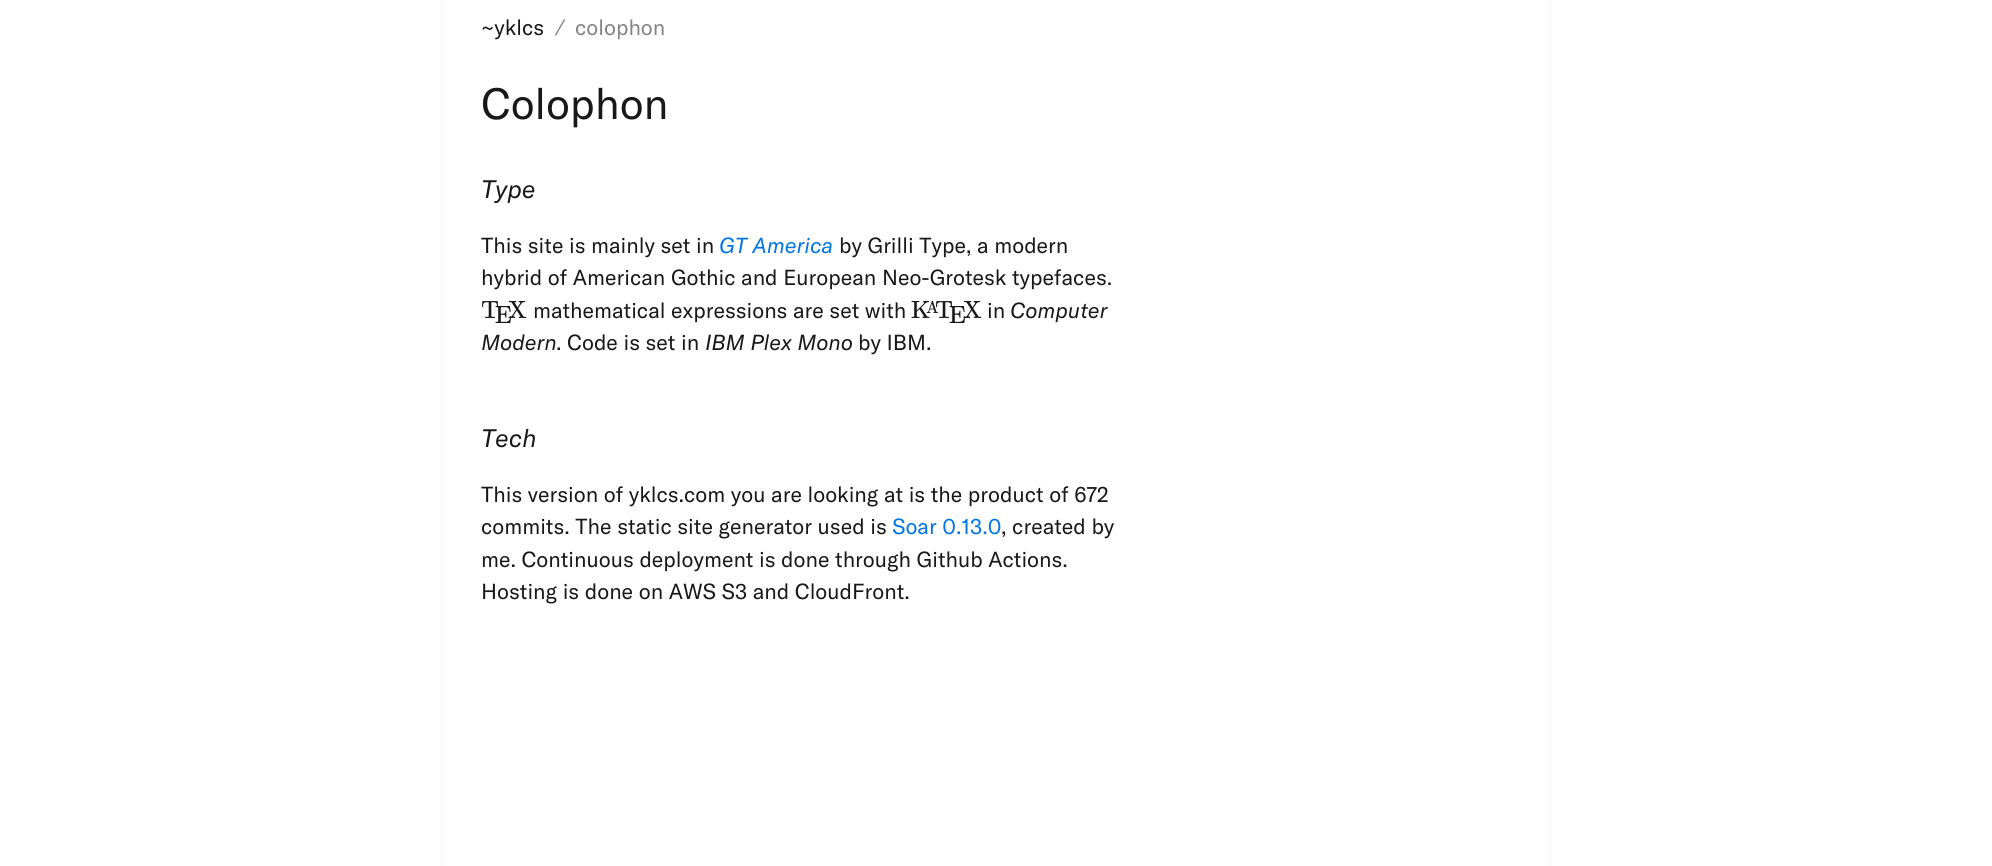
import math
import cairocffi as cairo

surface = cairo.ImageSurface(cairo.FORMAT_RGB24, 1992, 866)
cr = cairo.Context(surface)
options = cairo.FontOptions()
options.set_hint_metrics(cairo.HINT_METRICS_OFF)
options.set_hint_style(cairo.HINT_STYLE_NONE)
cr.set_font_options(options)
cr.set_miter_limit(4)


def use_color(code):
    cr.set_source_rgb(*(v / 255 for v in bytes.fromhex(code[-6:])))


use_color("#ffffff")
cr.paint()
use_color("#f1f1f1")
cr.rectangle(1550, 0, 1, 866)
cr.fill()
cr.rectangle(441, 0, 1, 866)
cr.fill()
cr.select_font_face("GT America")
cr.set_font_size(21.5)
use_color("#181818")
cr.move_to(481, 35)
cr.show_text("~yklcs")
use_color("#848484")
cr.move_to(558, 35)
cr.show_text("⁄")
cr.move_to(575, 35)
cr.show_text("colophon")
cr.set_font_size(43)
use_color("#181818")
cr.move_to(481, 119)
cr.show_text("Colophon")
cr.select_font_face("GT America", cairo.FONT_SLANT_ITALIC)
cr.set_font_size(25)
cr.move_to(481, 198)
cr.show_text("Type")
cr.select_font_face("GT America")
cr.set_font_size(21.5)
cr.move_to(481, 253)
cr.show_text("This site is mainly set in")
cr.select_font_face("GT America", cairo.FONT_SLANT_ITALIC)
use_color("#0075e7")
cr.move_to(719, 253)
cr.show_text("GT America")
cr.select_font_face("GT America")
use_color("#181818")
cr.move_to(839, 253)
cr.show_text("by Grilli Type, a modern")
cr.move_to(481, 285)
cr.show_text("hybrid of American Gothic and European Neo-Grotesk typefaces.")
cr.select_font_face("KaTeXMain")
cr.set_font_size(25)
cr.move_to(481, 318)
cr.show_text("T")
cr.move_to(508, 318)
cr.show_text("X")
cr.move_to(495, 323)
cr.show_text("E")
cr.select_font_face("GT America")
cr.set_font_size(21.5)
cr.move_to(533, 318)
cr.show_text("mathematical expressions are set with")
cr.select_font_face("KaTeXMain")
cr.set_font_size(25)
cr.move_to(911, 318)
cr.show_text("K")
cr.move_to(935, 318)
cr.show_text("T")
cr.set_font_size(17)
cr.move_to(926, 313)
cr.show_text("A")
cr.set_font_size(25)
cr.move_to(963, 318)
cr.show_text("X")
cr.move_to(949, 323)
cr.show_text("E")
cr.select_font_face("GT America")
cr.set_font_size(21.5)
cr.move_to(987, 318)
cr.show_text("in")
cr.select_font_face("GT America", cairo.FONT_SLANT_ITALIC)
cr.move_to(1010, 318)
cr.show_text("Computer")
cr.move_to(481, 350)
cr.show_text("Modern")
cr.select_font_face("GT America")
cr.move_to(556, 350)
cr.show_text(". Code is set in")
cr.select_font_face("GT America", cairo.FONT_SLANT_ITALIC)
cr.move_to(705, 350)
cr.show_text("IBM Plex Mono")
cr.select_font_face("GT America")
cr.move_to(858, 350)
cr.show_text("by IBM.")
cr.select_font_face("GT America", cairo.FONT_SLANT_ITALIC)
cr.set_font_size(25)
cr.move_to(481, 447)
cr.show_text("Tech")
cr.select_font_face("GT America")
cr.set_font_size(21.5)
cr.move_to(481, 502)
cr.show_text("This version of yklcs.com you are looking at is the product of 672")
cr.move_to(481, 534)
cr.show_text("commits. The static site generator used is")
use_color("#0075e7")
cr.move_to(892, 534)
cr.show_text("Soar 0.13.0")
use_color("#181818")
cr.move_to(1001, 534)
cr.show_text(", created by")
cr.move_to(481, 567)
cr.show_text("me. Continuous deployment is done through Github Actions.")
cr.move_to(481, 599)
cr.show_text("Hosting is done on AWS S3 and CloudFront.")
surface.write_to_png("result.png")
